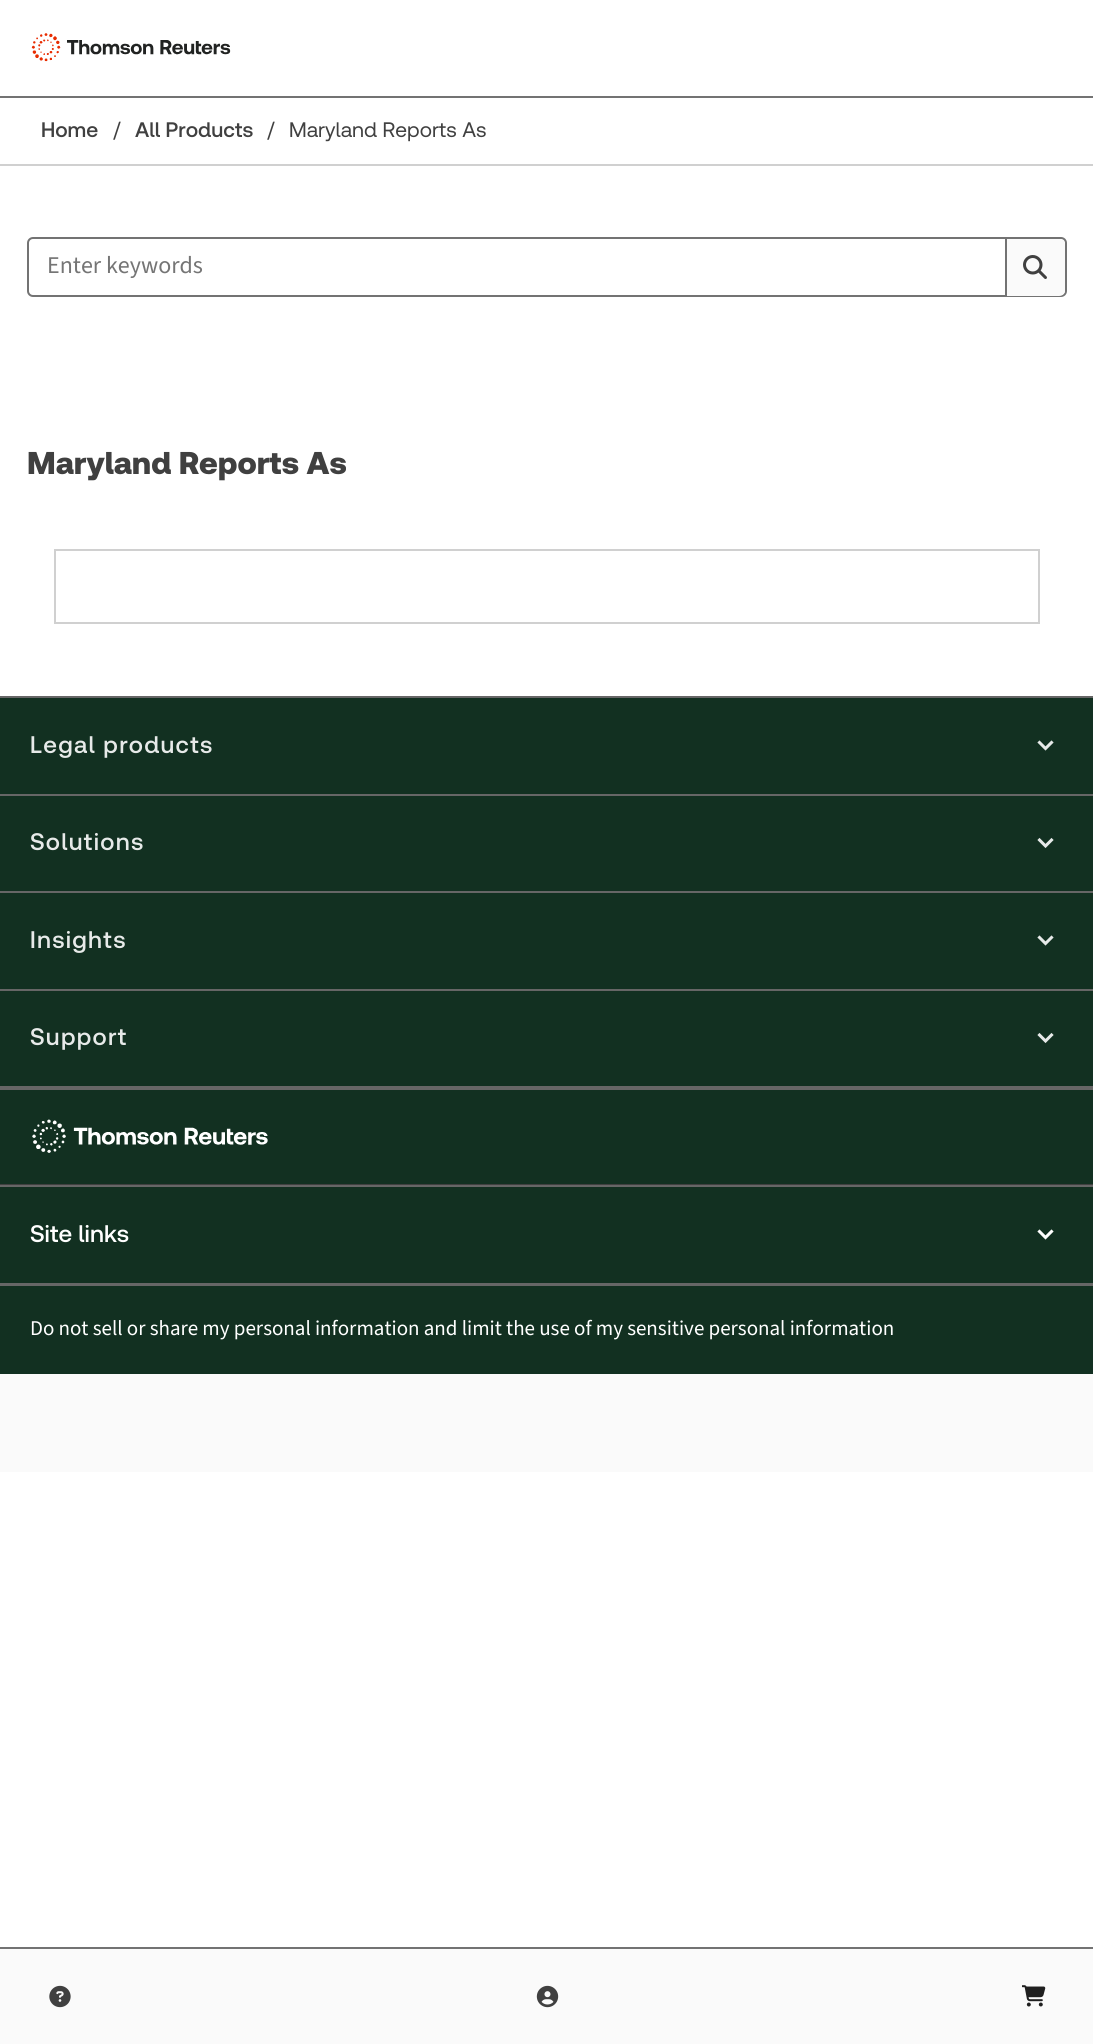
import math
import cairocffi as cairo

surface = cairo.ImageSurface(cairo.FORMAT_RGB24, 1093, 2044)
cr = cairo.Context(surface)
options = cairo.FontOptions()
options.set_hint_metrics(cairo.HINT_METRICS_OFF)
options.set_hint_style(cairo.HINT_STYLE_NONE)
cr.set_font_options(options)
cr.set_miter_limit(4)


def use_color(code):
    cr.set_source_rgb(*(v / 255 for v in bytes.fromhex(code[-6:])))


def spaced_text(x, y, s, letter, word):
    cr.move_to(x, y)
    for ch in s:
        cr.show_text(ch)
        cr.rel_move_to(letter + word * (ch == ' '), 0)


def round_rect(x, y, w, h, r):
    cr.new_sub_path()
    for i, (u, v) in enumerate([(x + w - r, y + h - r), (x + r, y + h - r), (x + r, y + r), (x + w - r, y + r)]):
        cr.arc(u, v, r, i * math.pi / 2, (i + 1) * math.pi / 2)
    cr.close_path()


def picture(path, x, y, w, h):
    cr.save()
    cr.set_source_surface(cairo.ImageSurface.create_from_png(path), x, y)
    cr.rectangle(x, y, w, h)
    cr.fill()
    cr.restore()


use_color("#ffffff")
cr.paint()
use_color("#737373")
cr.rectangle(0, 96, 1093, 2)
cr.fill()
picture("img1.png", 31, 33, 200, 29)
use_color("#fafafa")
cr.rectangle(0, 1949, 1093, 95)
cr.fill()
use_color("#737373")
cr.rectangle(0, 1947, 1093, 2)
cr.fill()
picture("img2.png", 49, 1985, 22, 23)
picture("img3.png", 536, 1985, 23, 23)
picture("img4.png", 1022, 1985, 24, 22)
use_color("#d0d0d0")
cr.rectangle(0, 164, 1093, 2)
cr.fill()
cr.select_font_face("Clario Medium")
cr.set_font_size(21)
use_color("#404040")
cr.move_to(41, 137)
cr.show_text("Home")
cr.select_font_face("Clario")
cr.move_to(113, 137)
cr.show_text("/")
cr.select_font_face("Clario Medium")
cr.move_to(135, 137)
cr.show_text("All Products")
cr.select_font_face("Clario")
cr.move_to(267, 137)
cr.show_text("/")
cr.move_to(289, 137)
cr.show_text("Maryland Reports As")
round_rect(28, 238, 1038, 58, 5)
use_color("#737373")
cr.stroke()
cr.select_font_face("Source Sans 3")
cr.set_font_size(24)
use_color("#757575")
cr.move_to(47, 273)
cr.show_text("Enter keywords")
use_color("#fafafa")
cr.new_path()
cr.move_to(1005, 239)
cr.line_to(1059, 239)
cr.curve_to(1062.5, 239, 1065, 241.5, 1065, 245)
cr.line_to(1065, 290)
cr.curve_to(1065, 293.5, 1062.5, 296, 1059, 296)
cr.line_to(1005, 296)
cr.close_path()
cr.fill()
use_color("#737373")
cr.rectangle(1005, 239, 2, 57)
cr.fill()
picture("img5.png", 1023, 255, 24, 24)
cr.select_font_face("Clario Black")
cr.set_font_size(31.5)
use_color("#404040")
cr.move_to(27, 474)
cr.show_text("Maryland Reports As")
cr.rectangle(55, 550, 984, 73)
use_color("#d0d0d0")
cr.stroke()
use_color("#123021")
cr.rectangle(0, 698, 1093, 388)
cr.fill()
use_color("#666666")
cr.rectangle(0, 1086, 1093, 4)
cr.fill()
cr.rectangle(0, 696, 1093, 2)
cr.fill()
cr.select_font_face("Clario Medium")
cr.set_font_size(24)
use_color("#e7eae9")
spaced_text(30, 753, "Legal products", 1.25, 0)
cr.new_path()
cr.move_to(1051.5, 742.5)
cr.line_to(1045.5, 748.5)
cr.line_to(1039.5, 742.5)
cr.set_line_width(3)
cr.set_line_cap(cairo.LINE_CAP_SQUARE)
cr.stroke()
use_color("#666666")
cr.rectangle(0, 794, 1093, 2)
cr.fill()
use_color("#e7eae9")
spaced_text(30, 850, "Solutions", 1.25, 0)
cr.new_path()
cr.move_to(1051.5, 840)
cr.line_to(1045.5, 846)
cr.line_to(1039.5, 840)
cr.stroke()
use_color("#666666")
cr.rectangle(0, 891, 1093, 2)
cr.fill()
use_color("#e7eae9")
spaced_text(30, 948, "Insights", 1.25, 0)
cr.new_path()
cr.move_to(1051.5, 937.5)
cr.line_to(1045.5, 943.5)
cr.line_to(1039.5, 937.5)
cr.stroke()
use_color("#666666")
cr.rectangle(0, 989, 1093, 2)
cr.fill()
use_color("#e7eae9")
spaced_text(30, 1045, "Support", 1.25, 0)
cr.new_path()
cr.move_to(1051.5, 1035)
cr.line_to(1045.5, 1041)
cr.line_to(1039.5, 1035)
cr.stroke()
use_color("#fafafa")
cr.rectangle(0, 1374, 1093, 98)
cr.fill()
use_color("#123021")
cr.rectangle(0, 1090, 1093, 284)
cr.fill()
use_color("#404040")
cr.rectangle(0, 1184, 1093, 1)
cr.fill()
picture("img6.png", 32, 1119, 236, 34)
use_color("#666666")
cr.rectangle(0, 1185, 1093, 2)
cr.fill()
cr.rectangle(0, 1283, 1093, 3)
cr.fill()
use_color("#ffffff")
cr.move_to(30, 1242)
cr.show_text("Site links")
cr.new_path()
cr.move_to(1051.5, 1231.5)
cr.line_to(1045.5, 1237.5)
cr.line_to(1039.5, 1231.5)
cr.stroke()
cr.select_font_face("Source Sans 3")
cr.set_font_size(21)
cr.move_to(30, 1335)
cr.show_text("Do not sell or share my personal information and limit the use of my sensitive personal information")
surface.write_to_png("result.png")
